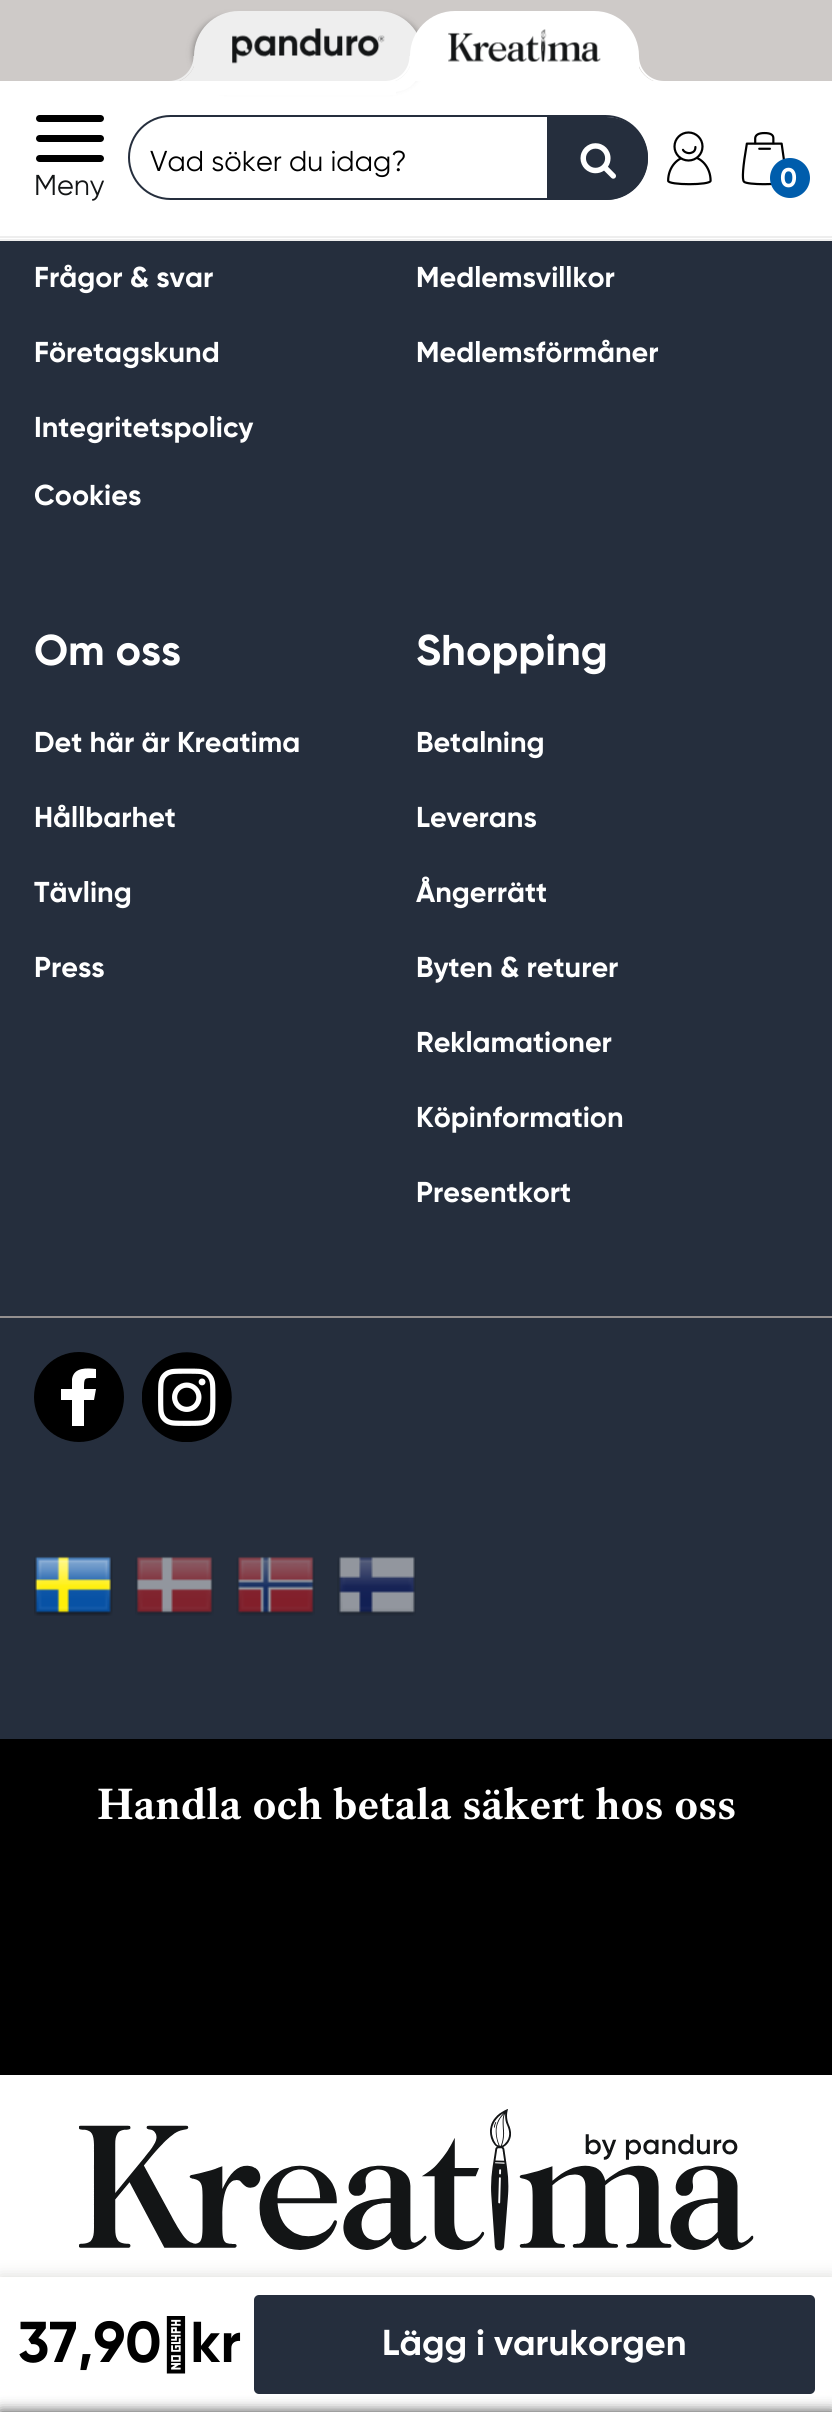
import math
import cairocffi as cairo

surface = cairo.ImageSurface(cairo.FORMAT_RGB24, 832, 2412)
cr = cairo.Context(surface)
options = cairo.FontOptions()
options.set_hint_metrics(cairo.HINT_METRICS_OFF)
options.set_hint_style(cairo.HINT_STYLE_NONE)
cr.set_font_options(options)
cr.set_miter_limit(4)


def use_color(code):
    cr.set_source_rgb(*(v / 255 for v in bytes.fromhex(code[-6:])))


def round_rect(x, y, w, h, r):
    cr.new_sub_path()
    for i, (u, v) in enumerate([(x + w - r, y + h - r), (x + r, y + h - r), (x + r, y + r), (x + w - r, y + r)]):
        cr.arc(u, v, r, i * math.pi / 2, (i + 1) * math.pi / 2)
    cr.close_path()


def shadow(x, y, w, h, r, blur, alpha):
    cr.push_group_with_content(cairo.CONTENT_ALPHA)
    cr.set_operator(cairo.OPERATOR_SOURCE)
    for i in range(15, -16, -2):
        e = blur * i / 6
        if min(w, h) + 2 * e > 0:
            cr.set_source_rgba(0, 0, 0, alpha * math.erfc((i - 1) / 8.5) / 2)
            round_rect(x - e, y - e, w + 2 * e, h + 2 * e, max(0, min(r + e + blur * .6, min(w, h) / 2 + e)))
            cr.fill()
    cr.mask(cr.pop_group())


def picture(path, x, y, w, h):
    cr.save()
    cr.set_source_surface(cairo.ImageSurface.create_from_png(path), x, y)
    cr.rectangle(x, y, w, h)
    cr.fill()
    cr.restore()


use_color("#ffffff")
cr.paint()
use_color("#eeeeee")
cr.rectangle(0, 239, 832, 2)
cr.fill()
use_color("#cecac8")
cr.rectangle(0, 0, 832, 81)
cr.fill()
use_color("#000000")
shadow(194, 18, 229, 70, 45, 3.5, 0.4)
use_color("#eeeeee")
cr.new_path()
cr.move_to(239, 12)
cr.line_to(378, 12)
cr.curve_to(402.5, 12, 422, 31.5, 422, 56)
cr.line_to(422, 80)
cr.line_to(195, 80)
cr.line_to(195, 56)
cr.curve_to(195, 31.5, 214.5, 12, 239, 12)
cr.close_path()
cr.fill_preserve()
cr.stroke()
picture("img1.png", 232, 28, 153, 36)
cr.new_path()
cr.move_to(171, 83)
cr.line_to(171, 92)
cr.line_to(178, 92)
cr.curve_to(193, 92, 205, 80, 205, 65)
cr.line_to(194.5, 65)
cr.curve_to(191, 75, 182, 82.5, 171, 83)
cr.close_path()
cr.fill()
cr.set_fill_rule(cairo.FILL_RULE_EVEN_ODD)
cr.new_path()
cr.move_to(162, 56)
cr.line_to(196, 56)
cr.curve_to(196, 71, 183.5, 83, 169, 83)
cr.line_to(162, 83)
cr.close_path()
cr.move_to(162, 56)
cr.line_to(193.5, 56)
cr.curve_to(193.5, 70, 182.5, 81, 169, 81)
cr.line_to(162, 81)
cr.close_path()
cr.fill()
use_color("#ffffff")
cr.new_path()
cr.move_to(455, 12)
cr.line_to(594, 12)
cr.curve_to(618.5, 12, 638, 31.5, 638, 56)
cr.line_to(638, 80)
cr.line_to(411, 80)
cr.line_to(411, 56)
cr.curve_to(411, 31.5, 430.5, 12, 455, 12)
cr.close_path()
cr.fill_preserve()
cr.stroke()
picture("img2.png", 448, 29, 153, 33)
cr.set_fill_rule(cairo.FILL_RULE_WINDING)
cr.new_path()
cr.move_to(387, 83)
cr.line_to(387, 92)
cr.line_to(394, 92)
cr.curve_to(409, 92, 421, 80, 421, 65)
cr.line_to(410.5, 65)
cr.curve_to(407, 75, 398, 82.5, 387, 83)
cr.close_path()
cr.fill()
cr.set_fill_rule(cairo.FILL_RULE_EVEN_ODD)
cr.new_path()
cr.move_to(378, 56)
cr.line_to(412, 56)
cr.curve_to(412, 71, 399.5, 83, 385, 83)
cr.line_to(378, 83)
cr.close_path()
cr.move_to(378, 56)
cr.line_to(409.5, 56)
cr.curve_to(409.5, 70, 398.5, 81, 385, 81)
cr.line_to(378, 81)
cr.close_path()
cr.fill()
cr.set_fill_rule(cairo.FILL_RULE_WINDING)
cr.new_path()
cr.move_to(628, 65)
cr.curve_to(628, 80, 640, 92, 655, 92)
cr.line_to(662, 92)
cr.line_to(662, 83)
cr.curve_to(651, 82.5, 641.5, 75, 638, 65)
cr.close_path()
cr.fill()
cr.set_fill_rule(cairo.FILL_RULE_EVEN_ODD)
cr.new_path()
cr.move_to(637, 56)
cr.line_to(670.5, 56)
cr.line_to(670.5, 83)
cr.line_to(664, 83)
cr.curve_to(649, 83, 637, 71, 637, 56)
cr.close_path()
cr.move_to(639, 56)
cr.line_to(670.5, 56)
cr.line_to(670.5, 81)
cr.line_to(664, 81)
cr.curve_to(650, 81, 639, 70, 639, 56)
cr.close_path()
cr.fill()
cr.rectangle(162, 81, 234, 14)
cr.fill()
use_color("#eeeeee")
cr.rectangle(0, 236, 832, 2)
cr.fill()
use_color("#000000")
round_rect(36, 135, 68, 7, 3.5)
cr.fill()
round_rect(36, 115, 68, 7, 3.5)
cr.fill()
round_rect(36, 155, 68, 7, 3.5)
cr.fill()
cr.select_font_face("Gilroy")
cr.set_font_size(28.75)
use_color("#131516")
cr.move_to(34, 195)
cr.show_text("Meny")
round_rect(129, 116, 518, 83, 41.5)
use_color("#252e3d")
cr.stroke()
use_color("#000000")
cr.move_to(150, 171)
cr.show_text("Vad söker du idag?")
use_color("#252e3d")
cr.new_path()
cr.move_to(547, 117)
cr.line_to(606.5, 117)
cr.curve_to(629.5, 117, 648, 135.5, 648, 158.5)
cr.curve_to(648, 181.5, 629.5, 200, 606.5, 200)
cr.line_to(547, 200)
cr.close_path()
cr.fill()
picture("img3.png", 580, 143, 36, 36)
picture("img4.png", 667, 131, 45, 55)
picture("img5.png", 741, 131, 44, 55)
use_color("#005dac")
cr.arc(790, 178, 20, 0, 2 * math.pi)
cr.fill()
cr.select_font_face("Gilroy", cairo.FONT_SLANT_NORMAL, cairo.FONT_WEIGHT_BOLD)
cr.set_font_size(27)
use_color("#ffffff")
cr.move_to(780, 187)
cr.show_text("0")
use_color("#d9d9d6")
shadow(0, 2277, 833, 135, 0, 8, 1)
use_color("#ffffff")
cr.rectangle(0, 2277, 832, 135)
cr.fill()
use_color("#252e3d")
round_rect(254, 2295, 561, 99, 5)
cr.fill()
use_color("#000000")
shadow(0, 2412, 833, 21, 0, 7, 0.75)
use_color("#252e3d")
cr.rectangle(0, 241, 832, 1498)
cr.fill()
cr.set_font_size(28.75)
use_color("#ffffff")
cr.move_to(34, 287)
cr.show_text("Frågor & svar")
cr.move_to(34, 362)
cr.show_text("Företagskund")
cr.move_to(34, 437)
cr.show_text("Integritetspolicy")
cr.move_to(34, 505)
cr.show_text("Cookies")
cr.move_to(416, 287)
cr.show_text("Medlemsvillkor")
cr.move_to(416, 362)
cr.show_text("Medlemsförmåner")
cr.set_font_size(43)
cr.move_to(34, 665)
cr.show_text("Om oss")
cr.set_font_size(28.75)
cr.move_to(34, 752)
cr.show_text("Det här är Kreatima")
cr.move_to(34, 827)
cr.show_text("Hållbarhet")
cr.move_to(34, 902)
cr.show_text("Tävling")
cr.move_to(34, 977)
cr.show_text("Press")
cr.set_font_size(43)
cr.move_to(416, 665)
cr.show_text("Shopping")
cr.set_font_size(28.75)
cr.move_to(416, 752)
cr.show_text("Betalning")
cr.move_to(416, 827)
cr.show_text("Leverans")
cr.move_to(416, 902)
cr.show_text("Ångerrätt")
cr.move_to(416, 977)
cr.show_text("Byten & returer")
cr.move_to(416, 1052)
cr.show_text("Reklamationer")
cr.move_to(416, 1127)
cr.show_text("Köpinformation")
cr.move_to(416, 1202)
cr.show_text("Presentkort")
use_color("#938f8f")
cr.rectangle(0, 1316, 832, 2)
cr.fill()
use_color("#000000")
cr.new_path()
cr.move_to(124, 1397)
cr.curve_to(124, 1422, 104, 1442, 79, 1442)
cr.curve_to(54, 1442, 34, 1422, 34, 1397)
cr.curve_to(34, 1372, 54, 1352, 79, 1352)
cr.curve_to(104, 1352, 124, 1372, 124, 1397)
cr.fill()
use_color("#ffffff")
cr.new_path()
cr.move_to(84, 1426)
cr.line_to(84, 1400)
cr.line_to(94, 1400)
cr.line_to(96, 1389)
cr.line_to(84, 1389)
cr.curve_to(84, 1377, 84, 1378, 96, 1378)
cr.line_to(96, 1369)
cr.curve_to(87, 1368, 74, 1367, 72, 1379)
cr.line_to(72, 1389)
cr.line_to(61, 1389)
cr.line_to(61, 1400)
cr.line_to(72, 1400)
cr.line_to(72, 1426)
cr.close_path()
cr.fill()
picture("img6.png", 142, 1352, 90, 90)
picture("img7.png", 34, 1556, 79, 60)
picture("img8.png", 135, 1556, 79, 60)
picture("img9.png", 236, 1556, 79, 60)
picture("img10.png", 337, 1556, 79, 60)
use_color("#000000")
cr.rectangle(0, 1739, 832, 336)
cr.fill()
cr.select_font_face("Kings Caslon", cairo.FONT_SLANT_NORMAL, cairo.FONT_WEIGHT_BOLD)
cr.set_font_size(45)
use_color("#ffffff")
cr.move_to(97, 1819)
cr.show_text("Handla och betala säkert hos oss")
picture("img11.png", 79, 2109, 675, 142)
cr.select_font_face("Gilroy", cairo.FONT_SLANT_NORMAL, cairo.FONT_WEIGHT_BOLD)
cr.set_font_size(57.5)
use_color("#000000")
cr.move_to(18, 2362)
cr.show_text("37,90 kr")
cr.set_font_size(36)
use_color("#ffffff")
cr.move_to(382, 2355)
cr.show_text("Lägg i varukorgen")
surface.write_to_png("result.png")
